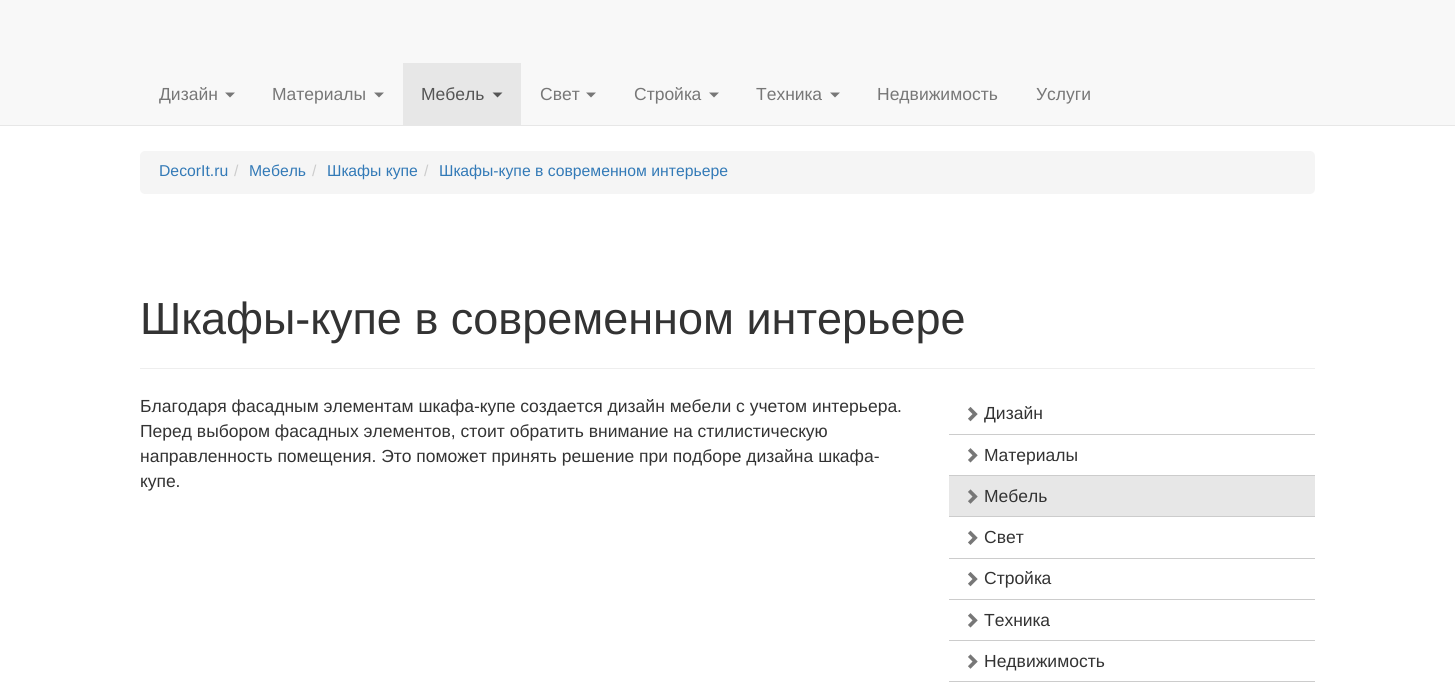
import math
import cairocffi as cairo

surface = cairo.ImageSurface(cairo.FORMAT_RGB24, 1455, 685)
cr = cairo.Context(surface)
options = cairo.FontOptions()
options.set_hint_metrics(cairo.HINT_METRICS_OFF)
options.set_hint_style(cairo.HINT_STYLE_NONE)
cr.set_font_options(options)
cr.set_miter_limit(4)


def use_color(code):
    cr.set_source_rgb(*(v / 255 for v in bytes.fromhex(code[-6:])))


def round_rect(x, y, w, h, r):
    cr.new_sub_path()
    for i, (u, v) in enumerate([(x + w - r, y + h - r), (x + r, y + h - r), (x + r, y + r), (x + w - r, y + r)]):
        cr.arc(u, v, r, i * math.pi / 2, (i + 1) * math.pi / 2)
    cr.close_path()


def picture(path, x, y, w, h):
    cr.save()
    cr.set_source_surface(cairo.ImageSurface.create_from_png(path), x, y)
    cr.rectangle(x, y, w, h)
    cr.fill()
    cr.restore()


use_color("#ffffff")
cr.paint()
use_color("#f8f8f8")
cr.rectangle(0, 0, 1455, 125)
cr.fill()
use_color("#e7e7e7")
cr.rectangle(0, 125, 1455, 1)
cr.fill()
cr.select_font_face("Liberation Sans")
cr.set_font_size(17.5)
use_color("#777777")
cr.move_to(159, 100)
cr.show_text("Дизайн")
cr.new_path()
cr.move_to(225, 92.5)
cr.line_to(235, 92.5)
cr.line_to(230, 97.5)
cr.close_path()
cr.fill()
cr.move_to(272, 100)
cr.show_text("Материалы")
cr.new_path()
cr.move_to(374, 92.5)
cr.line_to(384, 92.5)
cr.line_to(379, 97.5)
cr.close_path()
cr.fill()
use_color("#e7e7e7")
cr.rectangle(403, 63, 118, 62)
cr.fill()
use_color("#555555")
cr.move_to(421, 100)
cr.show_text("Мебель")
cr.new_path()
cr.move_to(492.5, 92.5)
cr.line_to(502.5, 92.5)
cr.line_to(497.5, 97.5)
cr.close_path()
cr.fill()
use_color("#777777")
cr.move_to(540, 100)
cr.show_text("Свет")
cr.new_path()
cr.move_to(586, 92.5)
cr.line_to(596, 92.5)
cr.line_to(591, 97.5)
cr.close_path()
cr.fill()
cr.move_to(634, 100)
cr.show_text("Стройка")
cr.new_path()
cr.move_to(709, 92.5)
cr.line_to(719, 92.5)
cr.line_to(714, 97.5)
cr.close_path()
cr.fill()
cr.move_to(756, 100)
cr.show_text("Техника")
cr.new_path()
cr.move_to(830, 92.5)
cr.line_to(840, 92.5)
cr.line_to(835, 97.5)
cr.close_path()
cr.fill()
cr.move_to(877, 100)
cr.show_text("Недвижимость")
cr.move_to(1036, 100)
cr.show_text("Услуги")
use_color("#f5f5f5")
round_rect(140, 151, 1175, 43, 5)
cr.fill()
cr.set_font_size(15.75)
use_color("#337ab7")
cr.move_to(159, 176)
cr.show_text("DecorIt.ru")
use_color("#cccccc")
cr.move_to(234, 176)
cr.show_text("/")
use_color("#337ab7")
cr.move_to(249, 176)
cr.show_text("Мебель")
use_color("#cccccc")
cr.move_to(312, 176)
cr.show_text("/")
use_color("#337ab7")
cr.move_to(327, 176)
cr.show_text("Шкафы купе")
use_color("#cccccc")
cr.move_to(424, 176)
cr.show_text("/")
use_color("#337ab7")
cr.move_to(439, 176)
cr.show_text("Шкафы-купе в современном интерьере")
use_color("#eeeeee")
cr.rectangle(140, 368, 1175, 1)
cr.fill()
cr.set_font_size(45)
use_color("#333333")
cr.move_to(140, 334)
cr.show_text("Шкафы-купе в современном интерьере")
cr.set_font_size(17.5)
cr.move_to(140, 412)
cr.show_text("Благодаря фасадным элементам шкафа-купе создается дизайн мебели с учетом интерьера.")
cr.move_to(140, 437)
cr.show_text("Перед выбором фасадных элементов, стоит обратить внимание на стилистическую")
cr.move_to(140, 462)
cr.show_text("направленность помещения. Это поможет принять решение при подборе дизайна шкафа-")
cr.move_to(140, 487)
cr.show_text("купе.")
picture("img1.png", 968, 407, 10, 15)
cr.move_to(984, 419)
cr.show_text("Дизайн")
use_color("#cccccc")
cr.rectangle(949, 434, 366, 1)
cr.fill()
picture("img2.png", 968, 448, 10, 15)
use_color("#333333")
cr.move_to(984, 461)
cr.show_text("Материалы")
use_color("#e7e7e7")
cr.rectangle(949, 476, 366, 40)
cr.fill()
use_color("#cccccc")
cr.rectangle(949, 475, 366, 1)
cr.fill()
picture("img3.png", 968, 489, 10, 15)
use_color("#333333")
cr.move_to(984, 502)
cr.show_text("Мебель")
use_color("#cccccc")
cr.rectangle(949, 516, 366, 1)
cr.fill()
picture("img4.png", 968, 530, 10, 15)
use_color("#333333")
cr.move_to(984, 543)
cr.show_text("Свет")
use_color("#cccccc")
cr.rectangle(949, 558, 366, 1)
cr.fill()
picture("img1.png", 968, 572, 10, 15)
use_color("#333333")
cr.move_to(984, 584)
cr.show_text("Стройка")
use_color("#cccccc")
cr.rectangle(949, 599, 366, 1)
cr.fill()
picture("img2.png", 968, 613, 10, 15)
use_color("#333333")
cr.move_to(984, 626)
cr.show_text("Техника")
use_color("#cccccc")
cr.rectangle(949, 640, 366, 1)
cr.fill()
picture("img5.png", 968, 654, 10, 15)
use_color("#333333")
cr.move_to(984, 667)
cr.show_text("Недвижимость")
use_color("#cccccc")
cr.rectangle(949, 681, 366, 1)
cr.fill()
surface.write_to_png("result.png")
